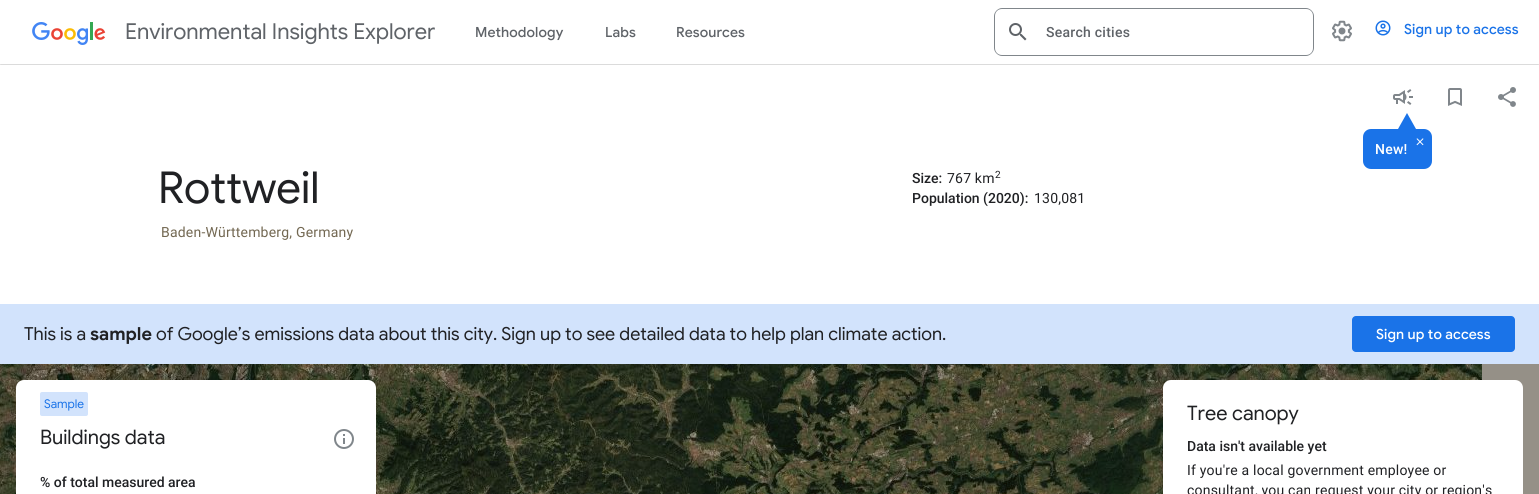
import math
import cairocffi as cairo

surface = cairo.ImageSurface(cairo.FORMAT_RGB24, 1539, 494)
cr = cairo.Context(surface)
options = cairo.FontOptions()
options.set_hint_metrics(cairo.HINT_METRICS_OFF)
options.set_hint_style(cairo.HINT_STYLE_NONE)
cr.set_font_options(options)
cr.set_miter_limit(4)


def use_color(code):
    cr.set_source_rgb(*(v / 255 for v in bytes.fromhex(code[-6:])))


def spaced_text(x, y, s, letter, word):
    cr.move_to(x, y)
    for ch in s:
        cr.show_text(ch)
        cr.rel_move_to(letter + word * (ch == ' '), 0)


def round_rect(x, y, w, h, r):
    cr.new_sub_path()
    for i, (u, v) in enumerate([(x + w - r, y + h - r), (x + r, y + h - r), (x + r, y + r), (x + w - r, y + r)]):
        cr.arc(u, v, r, i * math.pi / 2, (i + 1) * math.pi / 2)
    cr.close_path()


def shadow(x, y, w, h, r, blur, alpha):
    cr.push_group_with_content(cairo.CONTENT_ALPHA)
    cr.set_operator(cairo.OPERATOR_SOURCE)
    for i in range(15, -16, -2):
        e = blur * i / 6
        if min(w, h) + 2 * e > 0:
            cr.set_source_rgba(0, 0, 0, alpha * math.erfc((i - 1) / 8.5) / 2)
            round_rect(x - e, y - e, w + 2 * e, h + 2 * e, max(0, min(r + e + blur * .6, min(w, h) / 2 + e)))
            cr.fill()
    cr.mask(cr.pop_group())


def picture(path, x, y, w, h):
    cr.save()
    cr.set_source_surface(cairo.ImageSurface.create_from_png(path), x, y)
    cr.rectangle(x, y, w, h)
    cr.fill()
    cr.restore()


use_color("#ffffff")
cr.paint()
cr.save()
cr.rectangle(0, 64, 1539, 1)
cr.clip()
use_color("#000000")
shadow(0, 1, 1539, 64, 0, 0.5, 0.16)
cr.restore()
picture("img1.png", 32, 22, 74, 23)
cr.select_font_face("Google Sans")
cr.set_font_size(22)
use_color("#5f6368")
cr.move_to(125, 39)
cr.show_text("Environmental Insights Explorer")
cr.select_font_face("Google Sans Medium")
cr.set_font_size(14)
spaced_text(475, 37, "Methodology", 0.1, 0)
spaced_text(605, 37, "Labs", 0.1, 0)
spaced_text(676, 37, "Resources", 0.1, 0)
use_color("#80868b")
cr.set_fill_rule(cairo.FILL_RULE_EVEN_ODD)
cr.new_path()
cr.move_to(1002, 8)
cr.line_to(1006, 8)
cr.line_to(1006, 56)
cr.line_to(1002, 56)
cr.curve_to(998, 56, 994, 52, 994, 48)
cr.line_to(994, 16)
cr.curve_to(994, 12, 998, 8, 1002, 8)
cr.close_path()
cr.move_to(1002, 9)
cr.line_to(1006, 9)
cr.line_to(1006, 55)
cr.line_to(1002, 55)
cr.curve_to(998, 55, 995, 52, 995, 48)
cr.line_to(995, 16)
cr.curve_to(995, 12, 998, 9, 1002, 9)
cr.close_path()
cr.fill()
cr.new_path()
cr.move_to(1006, 8)
cr.line_to(1306, 8)
cr.curve_to(1310, 8, 1314, 12, 1314, 16)
cr.line_to(1314, 48)
cr.curve_to(1314, 52, 1310, 56, 1306, 56)
cr.line_to(1006, 56)
cr.close_path()
cr.move_to(1006, 9)
cr.line_to(1306, 9)
cr.curve_to(1310, 9, 1313, 12, 1313, 16)
cr.line_to(1313, 48)
cr.curve_to(1313, 52, 1310, 55, 1306, 55)
cr.line_to(1006, 55)
cr.close_path()
cr.fill()
picture("img2.png", 1009, 23, 18, 18)
cr.select_font_face("Roboto Medium")
use_color("#5f6368")
spaced_text(1046, 37, "Search cities", 0.25, 0)
picture("img3.png", 1332, 20, 20, 22)
picture("img4.png", 1375, 20, 16, 16)
cr.select_font_face("Google Sans Medium")
use_color("#1a73e8")
spaced_text(1404, 34, "Sign up to access", 0.1, 0)
picture("img5.png", 1448, 88, 14, 18)
picture("img6.png", 1498, 87, 18, 20)
picture("img7.png", 1393, 89, 20, 16)
round_rect(1363, 129, 69, 40, 8)
cr.fill()
cr.set_fill_rule(cairo.FILL_RULE_WINDING)
cr.new_path()
cr.move_to(1416, 129)
cr.line_to(1398, 129)
cr.line_to(1407, 113)
cr.close_path()
cr.fill()
picture("img8.png", 1416, 138, 8, 8)
cr.select_font_face("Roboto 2 Medium")
use_color("#ffffff")
spaced_text(1375, 154, "New!", 0.25, 0)
cr.select_font_face("Google Sans")
cr.set_font_size(44)
use_color("#202124")
cr.move_to(158, 203)
cr.show_text("Rottweil")
cr.select_font_face("Roboto")
cr.set_font_size(14)
use_color("#736852")
spaced_text(161, 237, "Baden-Württemberg, Germany", 0.2, 0)
cr.select_font_face("Roboto Medium")
use_color("#202124")
cr.move_to(912, 183)
cr.show_text("Size:")
cr.select_font_face("Roboto")
spaced_text(947, 183, "767 km", 0.2, 0)
cr.set_font_size(10)
spaced_text(995, 178, "2", 0.2, 0)
cr.select_font_face("Roboto Medium")
cr.set_font_size(14)
cr.move_to(912, 203)
cr.show_text("Population (2020):")
cr.select_font_face("Roboto")
spaced_text(1034, 203, "130,081", 0.2, 0)
use_color("#d2e3fc")
cr.rectangle(0, 304, 1539, 60)
cr.fill()
cr.select_font_face("Google Sans")
cr.set_font_size(18)
use_color("#202124")
cr.move_to(24, 340)
cr.show_text("This is a")
cr.select_font_face("Google Sans", cairo.FONT_SLANT_NORMAL, cairo.FONT_WEIGHT_BOLD)
cr.move_to(90, 340)
cr.show_text("sample")
cr.select_font_face("Google Sans")
cr.move_to(156, 340)
cr.show_text("of Google’s emissions data about this city. Sign up to see detailed data to help plan climate action.")
use_color("#1a73e8")
round_rect(1352, 316, 163, 36, 4)
cr.fill()
cr.select_font_face("Google Sans Medium")
cr.set_font_size(14)
use_color("#ffffff")
spaced_text(1376, 339, "Sign up to access", 0.1, 0)
picture("img9.png", 0, 364, 202, 97)
picture("img10.png", 202, 364, 256, 97)
picture("img11.png", 458, 364, 256, 97)
picture("img12.png", 714, 364, 256, 97)
picture("img13.png", 970, 364, 256, 97)
picture("img14.png", 1226, 364, 256, 16)
picture("img15.png", 0, 461, 16, 33)
picture("img16.png", 376, 461, 82, 33)
picture("img17.png", 458, 461, 256, 33)
picture("img18.png", 714, 461, 256, 33)
picture("img19.png", 970, 461, 193, 33)
use_color("#959087")
cr.rectangle(1482, 364, 57, 97)
cr.fill()
cr.rectangle(1523, 461, 16, 33)
cr.fill()
use_color("#ffffff")
round_rect(16, 380, 360, 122, 8)
cr.fill()
use_color("#d2e3fc")
round_rect(40, 392, 48, 24, 2)
cr.fill()
cr.select_font_face("Google Sans")
cr.set_font_size(12)
use_color("#1a73e8")
cr.move_to(44, 408)
cr.show_text("Sample")
cr.set_font_size(20)
use_color("#202124")
cr.move_to(40, 444)
cr.show_text("Buildings data")
picture("img20.png", 334, 429, 20, 20)
cr.select_font_face("Roboto Medium")
cr.set_font_size(14)
cr.move_to(40, 487)
cr.show_text("% of total measured area")
use_color("#ffffff")
round_rect(1163, 380, 360, 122, 8)
cr.fill()
cr.select_font_face("Google Sans")
cr.set_font_size(20)
use_color("#202124")
cr.move_to(1187, 420)
cr.show_text("Tree canopy")
cr.select_font_face("Roboto Medium")
cr.set_font_size(14)
cr.move_to(1187, 451)
cr.show_text("Data isn't available yet")
cr.select_font_face("Roboto")
spaced_text(1187, 475, "If you're a local government employee or", 0.2, 0)
spaced_text(1187, 495, "consultant, you can request your city or region's", 0.2, 0)
surface.write_to_png("result.png")
